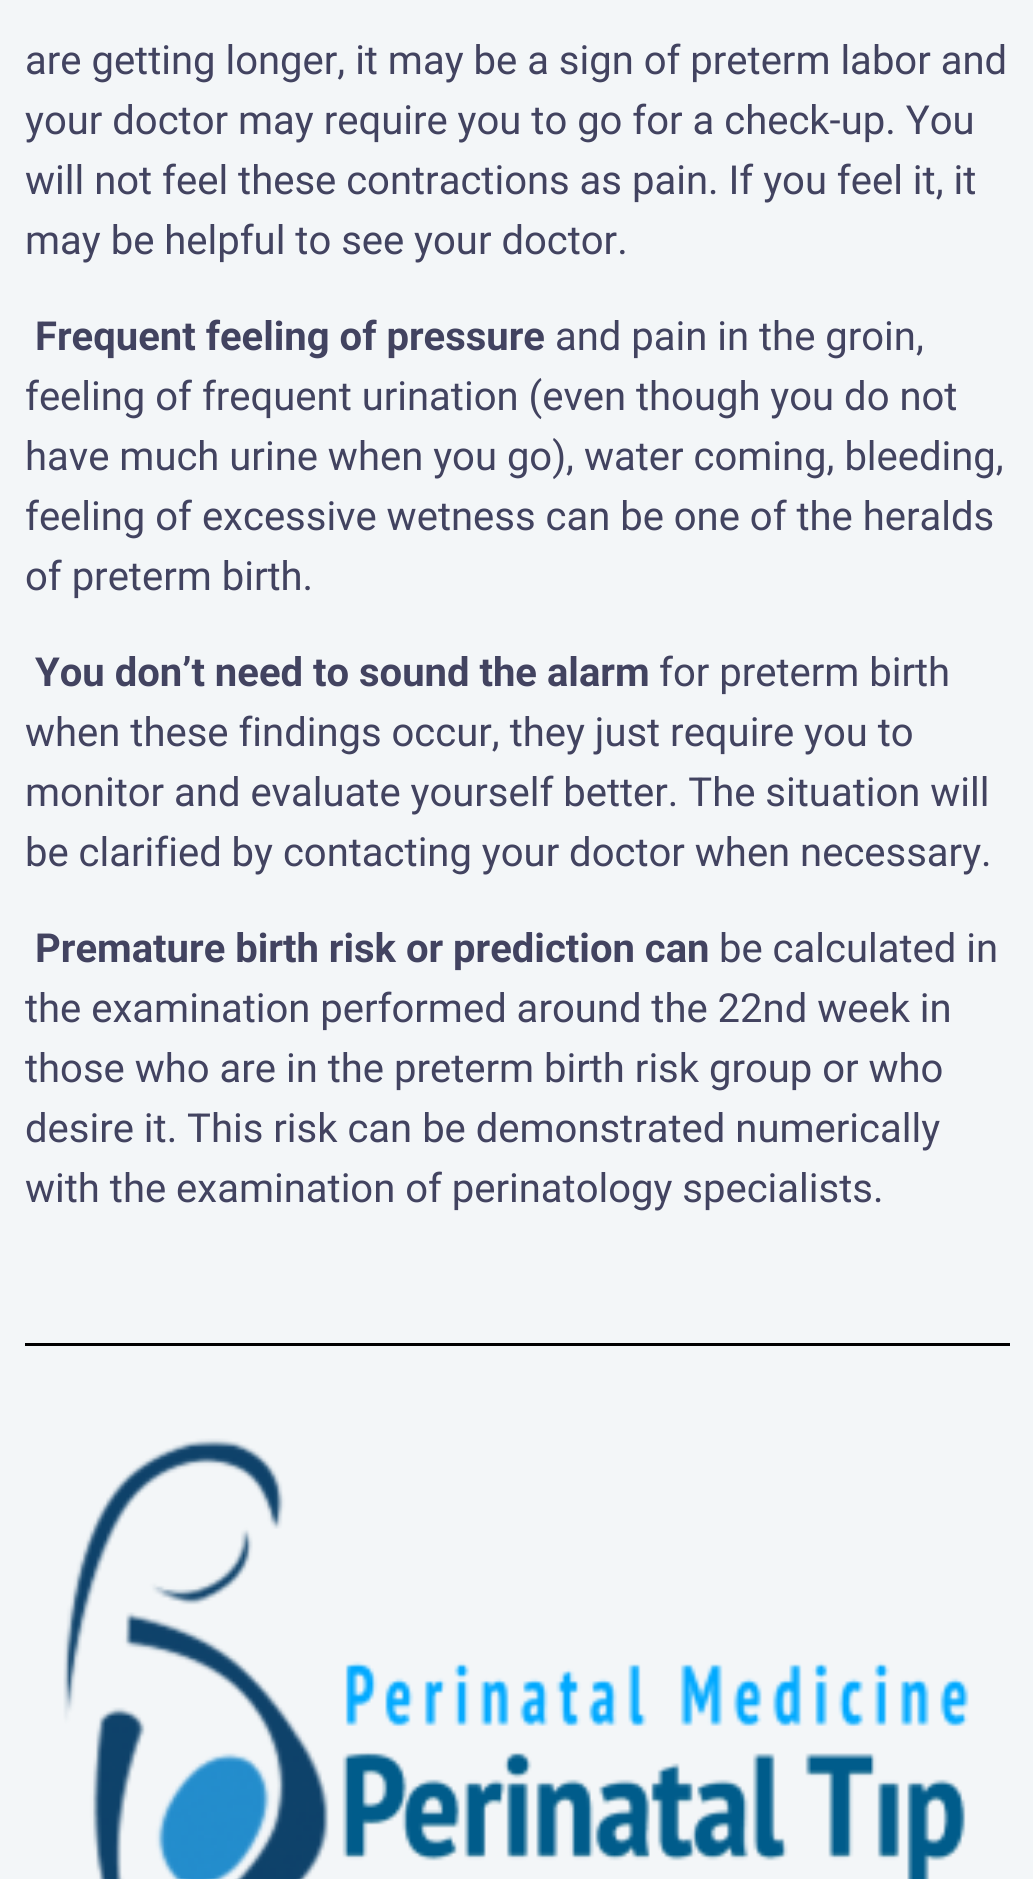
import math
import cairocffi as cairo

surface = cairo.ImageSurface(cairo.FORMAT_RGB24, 1033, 1879)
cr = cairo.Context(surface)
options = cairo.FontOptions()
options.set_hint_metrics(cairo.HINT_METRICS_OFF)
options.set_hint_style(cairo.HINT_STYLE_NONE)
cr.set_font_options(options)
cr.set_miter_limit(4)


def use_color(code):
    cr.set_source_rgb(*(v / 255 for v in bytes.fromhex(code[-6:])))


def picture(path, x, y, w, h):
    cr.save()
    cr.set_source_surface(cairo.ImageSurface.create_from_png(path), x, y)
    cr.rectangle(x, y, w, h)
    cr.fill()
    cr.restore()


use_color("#f3f6f8")
cr.paint()
cr.select_font_face("Roboto")
cr.set_font_size(40)
use_color("#424360")
cr.move_to(25, 74)
cr.show_text("are getting longer, it may be a sign of preterm labor and")
cr.move_to(25, 134)
cr.show_text("your doctor may require you to go for a check-up. You")
cr.move_to(25, 194)
cr.show_text("will not feel these contractions as pain. If you feel it, it")
cr.move_to(25, 254)
cr.show_text("may be helpful to see your doctor.")
cr.select_font_face("Roboto", cairo.FONT_SLANT_NORMAL, cairo.FONT_WEIGHT_BOLD)
cr.move_to(35, 350)
cr.show_text("Frequent feeling of pressure")
cr.select_font_face("Roboto")
cr.move_to(555, 350)
cr.show_text("and pain in the groin,")
cr.move_to(25, 410)
cr.show_text("feeling of frequent urination (even though you do not")
cr.move_to(25, 470)
cr.show_text("have much urine when you go), water coming, bleeding,")
cr.move_to(25, 530)
cr.show_text("feeling of excessive wetness can be one of the heralds")
cr.move_to(25, 590)
cr.show_text("of preterm birth.")
cr.select_font_face("Roboto", cairo.FONT_SLANT_NORMAL, cairo.FONT_WEIGHT_BOLD)
cr.move_to(35, 686)
cr.show_text("You don’t need to sound the alarm")
cr.select_font_face("Roboto")
cr.move_to(659, 686)
cr.show_text("for preterm birth")
cr.move_to(25, 746)
cr.show_text("when these findings occur, they just require you to")
cr.move_to(25, 806)
cr.show_text("monitor and evaluate yourself better. The situation will")
cr.move_to(25, 866)
cr.show_text("be clarified by contacting your doctor when necessary.")
cr.select_font_face("Roboto", cairo.FONT_SLANT_NORMAL, cairo.FONT_WEIGHT_BOLD)
cr.move_to(35, 962)
cr.show_text("Premature birth risk or prediction can")
cr.select_font_face("Roboto")
cr.move_to(719, 962)
cr.show_text("be calculated in")
cr.move_to(25, 1022)
cr.show_text("the examination performed around the 22nd week in")
cr.move_to(25, 1082)
cr.show_text("those who are in the preterm birth risk group or who")
cr.move_to(25, 1142)
cr.show_text("desire it. This risk can be demonstrated numerically")
cr.move_to(25, 1202)
cr.show_text("with the examination of perinatology specialists.")
use_color("#000000")
cr.rectangle(25, 1343, 985, 3)
cr.fill()
picture("img1.png", 63, 1438, 906, 441)
surface.write_to_png("result.png")
